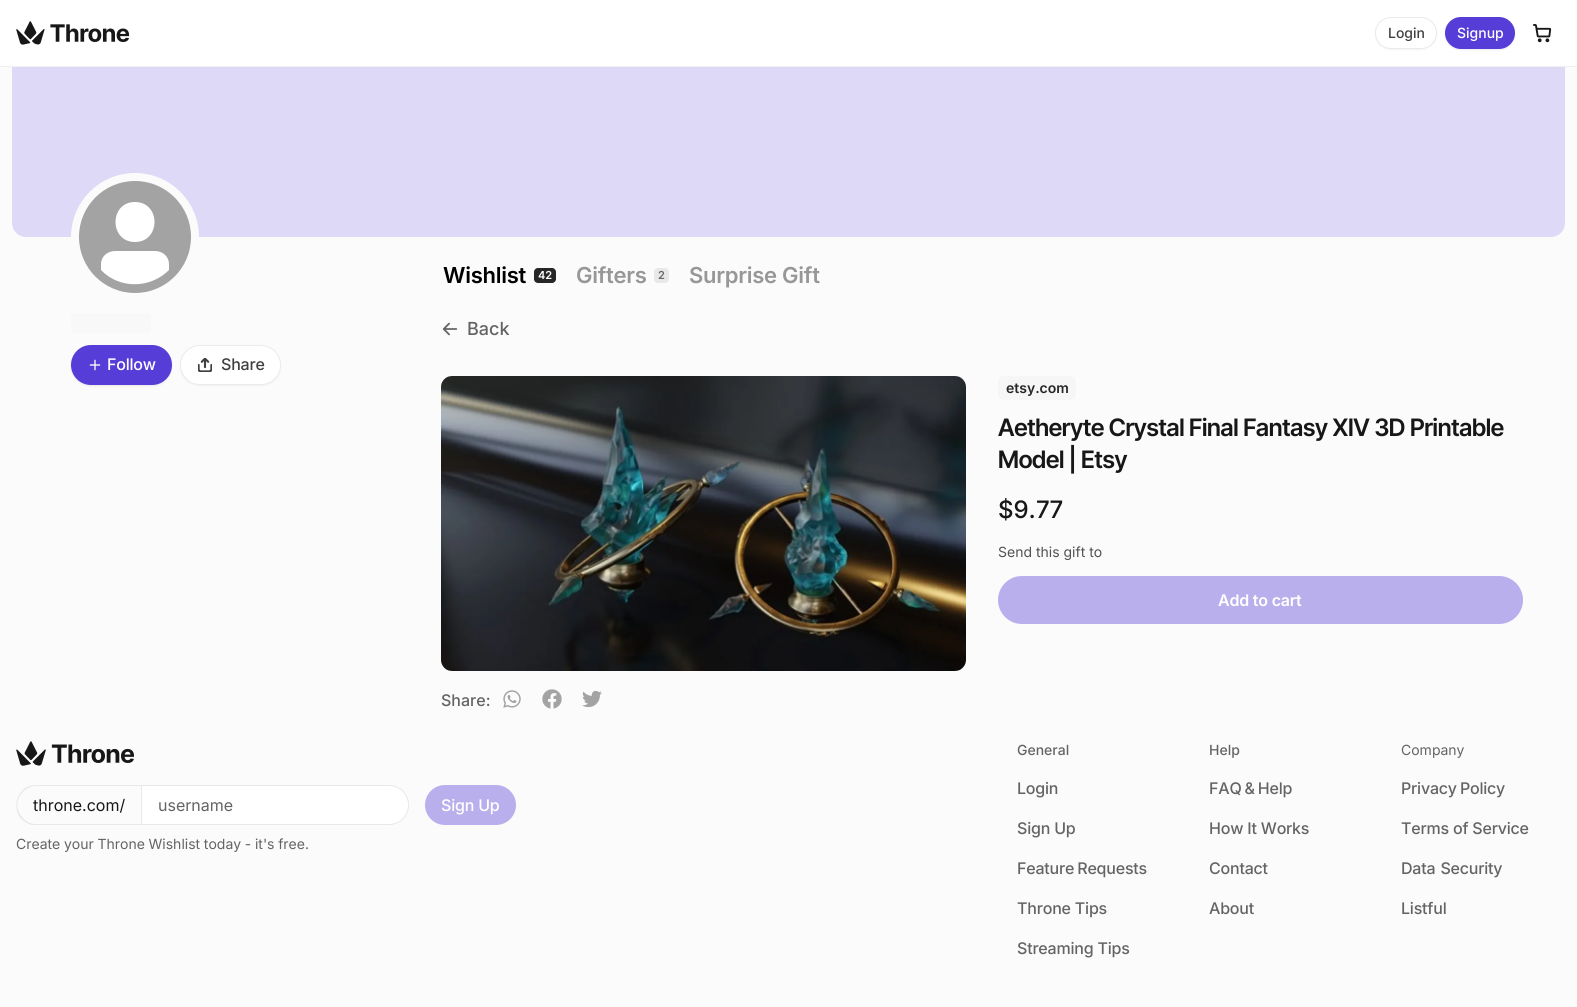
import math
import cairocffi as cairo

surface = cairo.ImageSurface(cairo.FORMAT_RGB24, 1577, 1007)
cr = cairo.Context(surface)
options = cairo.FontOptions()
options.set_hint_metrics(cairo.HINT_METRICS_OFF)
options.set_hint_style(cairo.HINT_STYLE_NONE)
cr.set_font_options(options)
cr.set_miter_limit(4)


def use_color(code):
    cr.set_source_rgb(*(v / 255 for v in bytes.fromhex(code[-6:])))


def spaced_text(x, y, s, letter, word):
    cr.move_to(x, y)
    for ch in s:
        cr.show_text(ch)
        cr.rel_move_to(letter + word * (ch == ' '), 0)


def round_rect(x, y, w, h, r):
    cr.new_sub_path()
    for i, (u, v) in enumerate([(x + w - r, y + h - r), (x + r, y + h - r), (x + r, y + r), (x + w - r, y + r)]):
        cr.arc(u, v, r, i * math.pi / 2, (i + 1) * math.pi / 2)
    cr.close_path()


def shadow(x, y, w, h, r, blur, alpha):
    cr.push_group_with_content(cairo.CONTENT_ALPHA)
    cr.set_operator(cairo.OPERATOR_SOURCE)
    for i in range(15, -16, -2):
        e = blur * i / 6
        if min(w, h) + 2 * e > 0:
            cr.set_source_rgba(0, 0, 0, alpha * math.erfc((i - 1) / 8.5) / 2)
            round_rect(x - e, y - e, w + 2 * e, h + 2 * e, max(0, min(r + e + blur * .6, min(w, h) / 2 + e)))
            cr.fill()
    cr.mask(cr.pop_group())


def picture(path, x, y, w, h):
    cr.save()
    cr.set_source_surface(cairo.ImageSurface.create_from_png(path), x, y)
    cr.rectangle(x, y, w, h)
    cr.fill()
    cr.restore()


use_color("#fbfbfb")
cr.paint()
use_color("#ddd9f7")
round_rect(12, -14, 1553, 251, 14)
cr.fill()
use_color("#ffffff")
cr.rectangle(0, 0, 1577, 66)
cr.fill()
use_color("#f0f0f0")
cr.rectangle(0, 66, 1577, 1)
cr.fill()
picture("img1.png", 16, 21, 114, 24)
use_color("#000000")
shadow(1375, 18, 62, 32, 16, 1, 0.04)
use_color("#ffffff")
round_rect(1375.5, 17.5, 61, 31, 15.5)
cr.fill_preserve()
use_color("#eaeaea")
cr.set_line_width(1)
cr.stroke()
cr.select_font_face("Inter Medium")
cr.set_font_size(14)
use_color("#404040")
cr.move_to(1388, 38)
cr.show_text("Login")
use_color("#000000")
shadow(1445, 18, 70, 32, 16, 1, 0.08)
use_color("#563dd8")
round_rect(1445, 17, 70, 32, 16)
cr.fill()
use_color("#ffffff")
cr.move_to(1457, 38)
cr.show_text("Signup")
picture("img2.png", 1533, 24, 19, 19)
use_color("#a3a3a3")
cr.arc(135, 237, 60, 0, 2 * math.pi)
cr.fill_preserve()
use_color("#fbfbfb")
cr.set_line_width(8)
cr.stroke()
use_color("#ffffff")
cr.new_path()
cr.move_to(169, 270)
cr.curve_to(150, 289, 119, 289, 101, 270)
cr.line_to(101, 264)
cr.curve_to(101, 257, 107, 251, 115, 251)
cr.line_to(155, 251)
cr.curve_to(163, 251, 169, 257, 169, 264)
cr.close_path()
cr.fill()
cr.new_path()
cr.move_to(135, 202)
cr.curve_to(109, 202, 109, 242, 135, 242)
cr.curve_to(161, 242, 161, 202, 135, 202)
cr.fill()
use_color("#f8f8f8")
round_rect(71, 313, 80, 20, 3)
cr.fill()
use_color("#000000")
shadow(71, 346, 101, 40, 20, 1, 0.08)
use_color("#563dd8")
round_rect(71, 345, 101, 40, 20)
cr.fill()
picture("img3.png", 89, 359, 12, 12)
cr.set_font_size(16)
use_color("#ffffff")
spaced_text(107, 370, "Follow", -0.2, 0)
use_color("#000000")
shadow(180, 346, 101, 40, 20, 1, 0.04)
use_color("#ffffff")
round_rect(180, 345, 101, 40, 20)
cr.fill()
round_rect(180.5, 345.5, 100, 39, 19.5)
cr.set_source_rgba(0, 0, 0, 0.08)
cr.set_line_width(1)
cr.stroke()
picture("img4.png", 198, 358, 14, 14)
use_color("#404040")
spaced_text(221, 370, "Share", -0.2, 0)
cr.select_font_face("Inter SemiBold")
cr.set_font_size(22)
use_color("#000000")
spaced_text(443, 283, "Wishlist", -0.25, 0)
use_color("#262626")
round_rect(534, 268, 22, 15, 4)
cr.fill()
cr.set_font_size(11)
use_color("#ffffff")
cr.move_to(538, 279)
cr.show_text("42")
cr.set_font_size(22)
use_color("#979797")
spaced_text(576, 283, "Gifters", -0.25, 0)
use_color("#e8e8e8")
round_rect(654, 268, 15, 15, 4)
cr.fill()
cr.set_font_size(11)
use_color("#6a6a6c")
cr.move_to(658, 279)
cr.show_text("2")
cr.set_font_size(22)
use_color("#979797")
spaced_text(689, 283, "Surprise Gift", -0.25, 0)
picture("img5.png", 442, 322, 16, 14)
cr.select_font_face("Inter Medium")
cr.set_font_size(18)
use_color("#646464")
cr.move_to(467, 335)
cr.show_text("Back")
use_color("#f6f6f6")
round_rect(998, 376, 78, 24, 6)
cr.fill()
cr.select_font_face("Inter SemiBold")
cr.set_font_size(14)
use_color("#262626")
cr.move_to(1006, 393)
cr.show_text("etsy.com")
cr.select_font_face("Inter Tight SemiBold")
cr.set_font_size(24)
use_color("#171717")
spaced_text(998, 436, "Aetheryte Crystal", -0.25, 0)
spaced_text(1189, 436, "Final Fantasy XIV 3D Printable", -0.25, 0)
spaced_text(998, 468, "Model | Etsy", -0.25, 0)
cr.select_font_face("Inter Medium")
cr.move_to(998, 518)
cr.show_text("$9.77")
cr.select_font_face("Inter")
cr.set_font_size(14)
use_color("#525252")
cr.move_to(998, 557)
cr.show_text("Send this gift to")
use_color("#b9afed")
round_rect(998, 576, 525, 48, 24)
cr.fill()
cr.select_font_face("Inter SemiBold")
cr.set_font_size(16)
use_color("#ffffff")
spaced_text(1218, 606, "Add to cart", -0.2, 0)
picture("img6.png", 441, 376, 525, 295)
cr.select_font_face("Inter Medium")
use_color("#646464")
cr.move_to(441, 706)
cr.show_text("Share:")
picture("img7.png", 503, 690, 18, 18)
picture("img8.png", 542, 689, 20, 20)
picture("img9.png", 582, 690, 20, 18)
picture("img10.png", 16, 741, 118, 25)
use_color("#e8e8e8")
cr.new_path()
cr.move_to(36, 785)
cr.curve_to(30, 785, 25, 787, 22, 791)
cr.line_to(23, 792)
cr.curve_to(26, 788, 31, 786, 36, 786)
cr.line_to(141, 786)
cr.line_to(142, 785)
cr.close_path()
cr.fill()
cr.new_path()
cr.move_to(142, 825)
cr.line_to(141, 824)
cr.line_to(36, 824)
cr.curve_to(31, 824, 26, 822, 23, 818)
cr.line_to(22, 819)
cr.curve_to(24, 822, 28, 824, 32, 825)
cr.close_path()
cr.fill()
cr.new_path()
cr.move_to(22, 791)
cr.curve_to(14.5, 798.5, 14.5, 811.5, 21.5, 819.5)
cr.line_to(23, 818)
cr.curve_to(15.5, 811, 15.5, 799, 23, 792)
cr.close_path()
cr.fill()
cr.select_font_face("Inter")
use_color("#171717")
cr.move_to(33, 811)
cr.show_text("throne.com/")
use_color("#ffffff")
cr.new_path()
cr.move_to(141.5, 785.5)
cr.line_to(389, 785.5)
cr.curve_to(400, 785.5, 408.5, 794, 408.5, 805)
cr.curve_to(408.5, 816, 400, 824.5, 389, 824.5)
cr.line_to(141.5, 824.5)
cr.close_path()
cr.fill_preserve()
use_color("#e8e8e8")
cr.stroke()
use_color("#646464")
cr.move_to(158, 811)
cr.show_text("username")
use_color("#b9afed")
round_rect(425, 785, 91, 40, 20)
cr.fill()
cr.select_font_face("Inter Medium")
use_color("#ffffff")
spaced_text(441, 811, "Sign Up", -0.2, 0)
cr.select_font_face("Inter")
cr.set_font_size(14)
use_color("#646464")
spaced_text(16, 849, "Create your Throne Wishlist today - it's free.", 0, -0.25)
cr.select_font_face("Inter Medium")
cr.move_to(1017, 755)
cr.show_text("General")
cr.set_font_size(16)
spaced_text(1017, 794, "Login", -0.2, 0)
spaced_text(1017, 834, "Sign Up", -0.2, 0)
spaced_text(1017, 874, "Feature Requests", -0.2, -1)
spaced_text(1017, 914, "Throne Tips", -0.2, 0)
spaced_text(1017, 954, "Streaming Tips", -0.2, 0)
cr.set_font_size(14)
cr.move_to(1209, 755)
cr.show_text("Help")
cr.set_font_size(16)
spaced_text(1209, 794, "FAQ & Help", -0.2, -1)
spaced_text(1209, 834, "How It Works", -0.2, 0)
spaced_text(1209, 874, "Contact", -0.2, 0)
spaced_text(1209, 914, "About", -0.2, 0)
cr.select_font_face("Inter")
cr.set_font_size(14)
cr.move_to(1401, 755)
cr.show_text("Company")
cr.select_font_face("Inter Medium")
cr.set_font_size(16)
spaced_text(1401, 794, "Privacy Policy", -0.2, -1)
spaced_text(1401, 834, "Terms of Service", -0.2, 0)
spaced_text(1401, 874, "Data Security", -0.2, 1)
spaced_text(1401, 914, "Listful", -0.2, 0)
surface.write_to_png("result.png")
